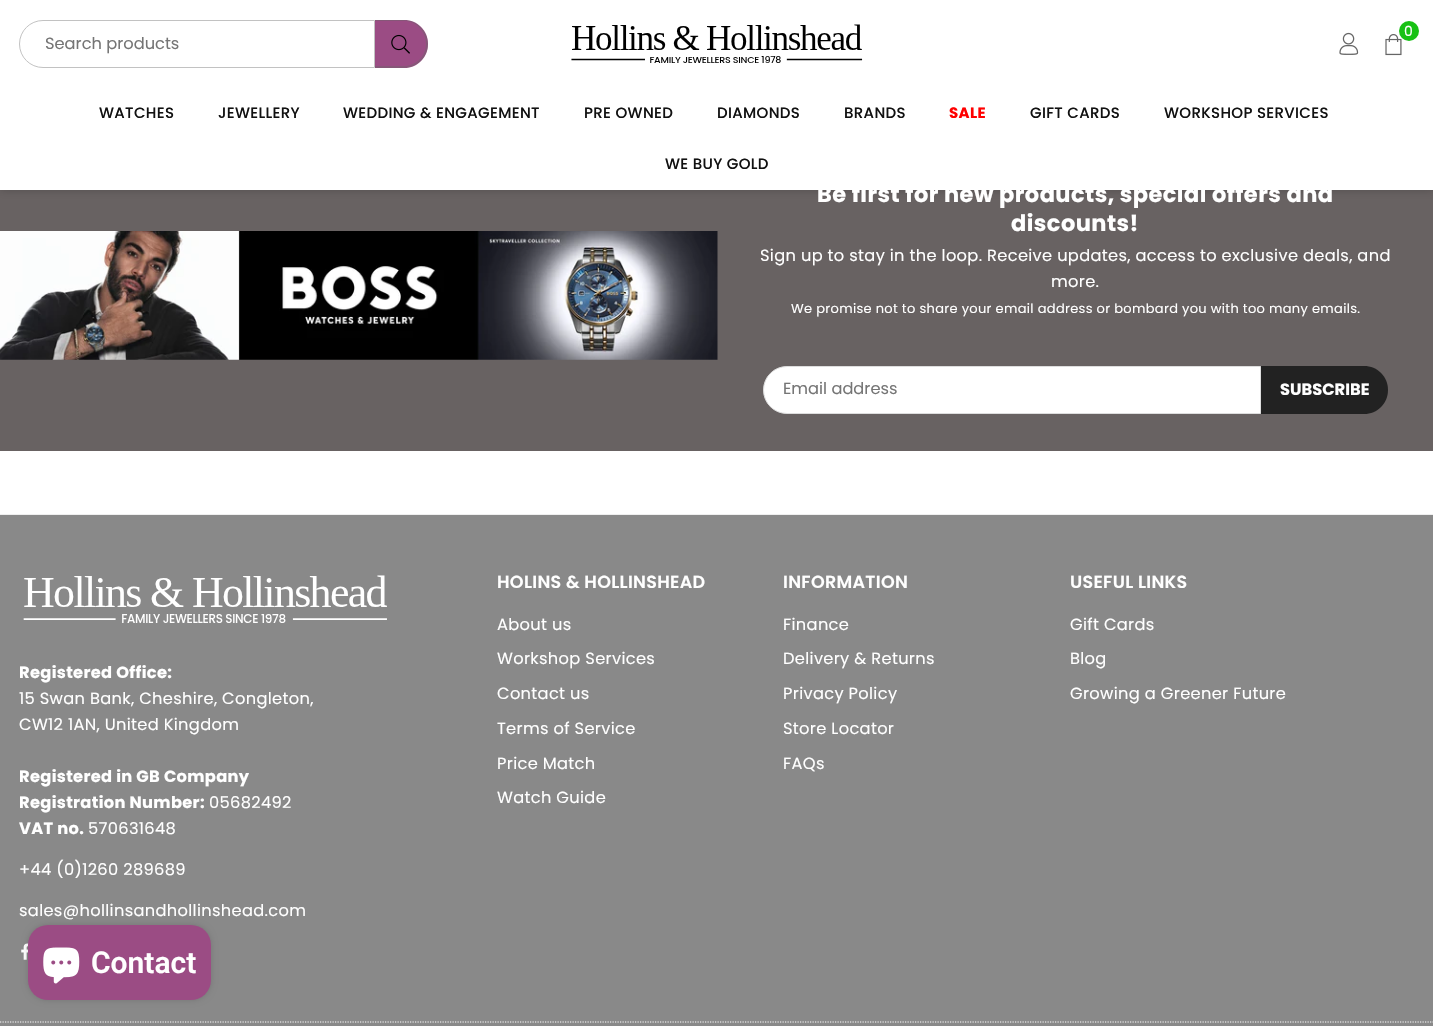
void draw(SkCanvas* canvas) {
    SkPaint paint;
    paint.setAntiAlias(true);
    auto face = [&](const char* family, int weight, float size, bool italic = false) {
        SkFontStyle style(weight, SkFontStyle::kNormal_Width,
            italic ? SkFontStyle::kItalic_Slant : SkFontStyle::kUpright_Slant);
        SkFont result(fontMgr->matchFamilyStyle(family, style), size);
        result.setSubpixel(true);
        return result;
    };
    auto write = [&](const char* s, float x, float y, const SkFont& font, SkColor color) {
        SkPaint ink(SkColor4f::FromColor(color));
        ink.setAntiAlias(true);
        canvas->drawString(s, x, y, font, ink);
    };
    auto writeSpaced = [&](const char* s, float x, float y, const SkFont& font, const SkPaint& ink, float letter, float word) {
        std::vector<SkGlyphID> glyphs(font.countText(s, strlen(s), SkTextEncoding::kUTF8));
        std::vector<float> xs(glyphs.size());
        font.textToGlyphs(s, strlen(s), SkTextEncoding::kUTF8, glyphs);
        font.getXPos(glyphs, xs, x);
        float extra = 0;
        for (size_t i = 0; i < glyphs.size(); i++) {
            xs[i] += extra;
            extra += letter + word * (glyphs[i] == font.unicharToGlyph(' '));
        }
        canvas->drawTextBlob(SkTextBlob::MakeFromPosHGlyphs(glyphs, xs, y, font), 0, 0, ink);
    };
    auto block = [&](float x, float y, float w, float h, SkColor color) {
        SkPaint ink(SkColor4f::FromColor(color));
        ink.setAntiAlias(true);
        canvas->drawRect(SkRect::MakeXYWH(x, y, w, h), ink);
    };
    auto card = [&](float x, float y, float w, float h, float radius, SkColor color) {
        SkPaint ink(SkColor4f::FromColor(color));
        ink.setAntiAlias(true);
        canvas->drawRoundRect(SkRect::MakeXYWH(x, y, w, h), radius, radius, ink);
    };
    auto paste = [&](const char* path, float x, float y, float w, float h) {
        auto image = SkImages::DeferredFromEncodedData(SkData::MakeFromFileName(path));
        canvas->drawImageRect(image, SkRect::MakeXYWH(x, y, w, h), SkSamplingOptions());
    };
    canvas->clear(SK_ColorWHITE);
    block(0, 190, 1433, 261, SkColorSetRGB(104, 98, 98));
    paint.setColor(SkColorSetARGB(51, 0, 0, 0));
    paint.setMaskFilter(SkMaskFilter::MakeBlur(kNormal_SkBlurStyle, 4.5f));
    canvas->drawRect(SkRect::MakeXYWH(0, 0, 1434, 190), paint);
    paint.setMaskFilter(nullptr);
    block(0, 0, 1433, 190, SK_ColorWHITE);
    paste("pic1.png", 571, 24, 292, 39);
    paste("pic2.png", 1385, 34, 17, 22);
    paint.setColor(SkColorSetRGB(24, 193, 20));
    canvas->drawCircle(1409, 31, 10, paint);
    auto kFont1 = face("Poppins", 400, 14);
    paint.setColor(SK_ColorWHITE);
    writeSpaced("0", 1404, 36, kFont1, paint, 0.33f, 0);
    paste("pic3.png", 1339, 32, 20, 23);
    paint.setStyle(SkPaint::kStroke_Style);
    paint.setStrokeWidth(1);
    paint.setColor(SkColorSetRGB(194, 194, 194));
    canvas->drawPath(SkPathBuilder().moveTo(43, 20.5f).lineTo(374.5f, 20.5f).lineTo(374.5f, 67.5f).lineTo(43, 67.5f).cubicTo(30, 67.5f, 19.5f, 57, 19.5f, 44).cubicTo(19.5f, 31, 30, 20.5f, 43, 20.5f).close().detach(), paint);
    auto kFont2 = face("Poppins", 400, 16.25f);
    write("Search products", 45, 49, kFont2, SkColorSetRGB(117, 117, 117));
    paint.setStyle(SkPaint::kFill_Style);
    paint.setColor(SkColorSetRGB(155, 76, 132));
    canvas->drawPath(SkPathBuilder().moveTo(375, 20).lineTo(404, 20).cubicTo(417.5f, 20, 428, 30.5f, 428, 44).cubicTo(428, 57.5f, 417.5f, 68, 404, 68).lineTo(375, 68).close().detach(), paint);
    paint.setColor(SkColorSetARGB(102, 102, 102, 102));
    canvas->drawPath(SkPathBuilder(SkPathFillType::kEvenOdd).moveTo(375, 20).lineTo(404, 20).cubicTo(417, 20, 428, 31, 428, 44).cubicTo(428, 57, 417, 68, 404, 68).lineTo(375, 68).close().moveTo(375, 21).lineTo(404, 21).cubicTo(416, 21, 426, 31, 426, 44).cubicTo(426, 56, 416, 66, 404, 66).lineTo(375, 66).close().detach(), paint);
    paste("pic4.png", 391, 34, 19, 20);
    auto kFont3 = face("Poppins", 500, 15);
    paint.setColor(SkColorSetRGB(17, 17, 17));
    writeSpaced("WATCHES", 99, 118, kFont3, paint, 0.33f, 0);
    writeSpaced("JEWELLERY", 218, 118, kFont3, paint, 0.33f, 0);
    writeSpaced("WEDDING & ENGAGEMENT", 343, 118, kFont3, paint, 0.33f, 0);
    writeSpaced("PRE OWNED", 584, 118, kFont3, paint, 0.33f, 0);
    writeSpaced("DIAMONDS", 717, 118, kFont3, paint, 0.33f, 0);
    writeSpaced("BRANDS", 844, 118, kFont3, paint, 0.33f, 0);
    auto kFont4 = face("Poppins", 700, 15);
    paint.setColor(SkColorSetRGB(255, 0, 0));
    writeSpaced("SALE", 949, 118, kFont4, paint, 0.33f, 0);
    paint.setColor(SkColorSetRGB(17, 17, 17));
    writeSpaced("GIFT CARDS", 1030, 118, kFont3, paint, 0.33f, 0);
    writeSpaced("WORKSHOP SERVICES", 1164, 118, kFont3, paint, 0.33f, 0);
    writeSpaced("WE BUY GOLD", 665, 169, kFont3, paint, 0.33f, 0);
    paste("pic5.png", 0, 231, 718, 129);
    auto kFont5 = face("Poppins", 700, 22.5f);
    paint.setColor(SK_ColorWHITE);
    writeSpaced("Be first for new products, special offers and", 817, 202, kFont5, paint, 0.45f, 0);
    writeSpaced("discounts!", 1011, 231, kFont5, paint, 0.45f, 0);
    writeSpaced("Sign up to stay in the loop. Receive updates, access to exclusive deals, and", 760, 261, kFont2, paint, 0.33f, 0);
    writeSpaced("more.", 1051, 287, kFont2, paint, 0.33f, 0);
    auto kFont6 = face("Poppins", 400, 13);
    writeSpaced("We promise not to share your email address or bombard you with too many emails.", 791, 313, kFont6, paint, 0.33f, 0);
    canvas->drawPath(SkPathBuilder().moveTo(787, 366.5f).lineTo(1260.5f, 366.5f).lineTo(1260.5f, 413.5f).lineTo(787, 413.5f).cubicTo(774, 413.5f, 763.5f, 403, 763.5f, 390).cubicTo(763.5f, 377, 774, 366.5f, 787, 366.5f).close().detach(), paint);
    paint.setStyle(SkPaint::kStroke_Style);
    paint.setColor(SkColorSetRGB(221, 221, 221));
    canvas->drawPath(SkPathBuilder().moveTo(787, 366.5f).lineTo(1260.5f, 366.5f).lineTo(1260.5f, 413.5f).lineTo(787, 413.5f).cubicTo(774, 413.5f, 763.5f, 403, 763.5f, 390).cubicTo(763.5f, 377, 774, 366.5f, 787, 366.5f).close().detach(), paint);
    write("Email address", 783, 394, kFont2, SkColorSetRGB(117, 117, 117));
    paint.setStyle(SkPaint::kFill_Style);
    paint.setColor(SkColorSetRGB(34, 34, 34));
    canvas->drawPath(SkPathBuilder().moveTo(1261, 366).lineTo(1364, 366).cubicTo(1377.5f, 366, 1388, 376.5f, 1388, 390).cubicTo(1388, 403.5f, 1377.5f, 414, 1364, 414).lineTo(1261, 414).close().detach(), paint);
    auto kFont7 = face("Poppins", 700, 16.25f);
    write("SUBSCRIBE", 1280, 395, kFont7, SK_ColorWHITE);
    block(0, 515, 1433, 511, SkColorSetRGB(137, 137, 137));
    block(0, 514, 1433, 1, SkColorSetRGB(238, 238, 238));
    auto kFont8 = face("Poppins", 600, 17.5f);
    paint.setColor(SK_ColorWHITE);
    writeSpaced("HOLINS & HOLLINSHEAD", 497, 588, kFont8, paint, 0.3f, 0);
    writeSpaced("About us", 497, 630, kFont2, paint, 0.33f, 0);
    writeSpaced("Workshop Services", 497, 664, kFont2, paint, 0.33f, 0);
    writeSpaced("Contact us", 497, 699, kFont2, paint, 0.33f, 0);
    writeSpaced("Terms of Service", 497, 734, kFont2, paint, 0.33f, 0);
    writeSpaced("Price Match", 497, 769, kFont2, paint, 0.33f, 0);
    writeSpaced("Watch Guide", 497, 803, kFont2, paint, 0.33f, 0);
    writeSpaced("INFORMATION", 783, 588, kFont8, paint, 0.3f, 0);
    writeSpaced("Finance", 783, 630, kFont2, paint, 0.33f, 0);
    writeSpaced("Delivery & Returns", 783, 664, kFont2, paint, 0.33f, 0);
    writeSpaced("Privacy Policy", 783, 699, kFont2, paint, 0.33f, 0);
    writeSpaced("Store Locator", 783, 734, kFont2, paint, 0.33f, 0);
    writeSpaced("FAQs", 783, 769, kFont2, paint, 0.33f, 0);
    writeSpaced("USEFUL LINKS", 1070, 588, kFont8, paint, 0.3f, 0);
    writeSpaced("Gift Cards", 1070, 630, kFont2, paint, 0.33f, 0);
    writeSpaced("Blog", 1070, 664, kFont2, paint, 0.33f, 0);
    writeSpaced("Growing a Greener Future", 1070, 699, kFont2, paint, 0.33f, 0);
    paste("pic6.png", 23, 575, 364, 48);
    writeSpaced("Registered Office:", 19, 678, kFont7, paint, 0.33f, 0);
    writeSpaced("15 Swan Bank, Cheshire, Congleton,", 19, 704, kFont2, paint, 0.33f, 0);
    writeSpaced("CW12 1AN, United Kingdom", 19, 730, kFont2, paint, 0.33f, 0);
    writeSpaced("Registered in GB Company", 19, 782, kFont7, paint, 0.33f, 0);
    writeSpaced("Registration Number:", 19, 808, kFont7, paint, 0.33f, 0);
    writeSpaced("05682492", 209, 808, kFont2, paint, 0.33f, 0);
    writeSpaced("VAT no.", 19, 834, kFont7, paint, 0.33f, 0);
    writeSpaced("570631648", 88, 834, kFont2, paint, 0.33f, 0);
    writeSpaced("+44 (0)1260 289689", 19, 875, kFont2, paint, 0.33f, 0);
    writeSpaced("sales@hollinsandhollinshead.com", 19, 916, kFont2, paint, 0.33f, 0);
    paste("pic7.png", 21, 943, 8, 17);
    paint.setStyle(SkPaint::kStroke_Style);
    paint.setStrokeWidth(1.2f);
    paint.setPathEffect(SkDashPathEffect::Make({{1.25f, 1.25f}}, 0));
    canvas->drawPath(SkPathBuilder().moveTo(0, 1022).lineTo(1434, 1022).detach(), paint);
    paint.setPathEffect(nullptr);
    paint.setStyle(SkPaint::kFill_Style);
    paint.setColor(SkColorSetARGB(38, 0, 0, 0));
    paint.setMaskFilter(SkMaskFilter::MakeBlur(kNormal_SkBlurStyle, 3));
    canvas->drawRoundRect(SkRect::MakeXYWH(28, 925, 183, 75), 20, 20, paint);
    paint.setMaskFilter(nullptr);
    card(28, 925, 183, 75, 20, SkColorSetRGB(155, 76, 132));
    paste("pic8.png", 43, 947, 37, 37);
    auto kFont9 = face("Roboto", 600, 30);
    write("Contact", 91, 973, kFont9, SK_ColorWHITE);
}
